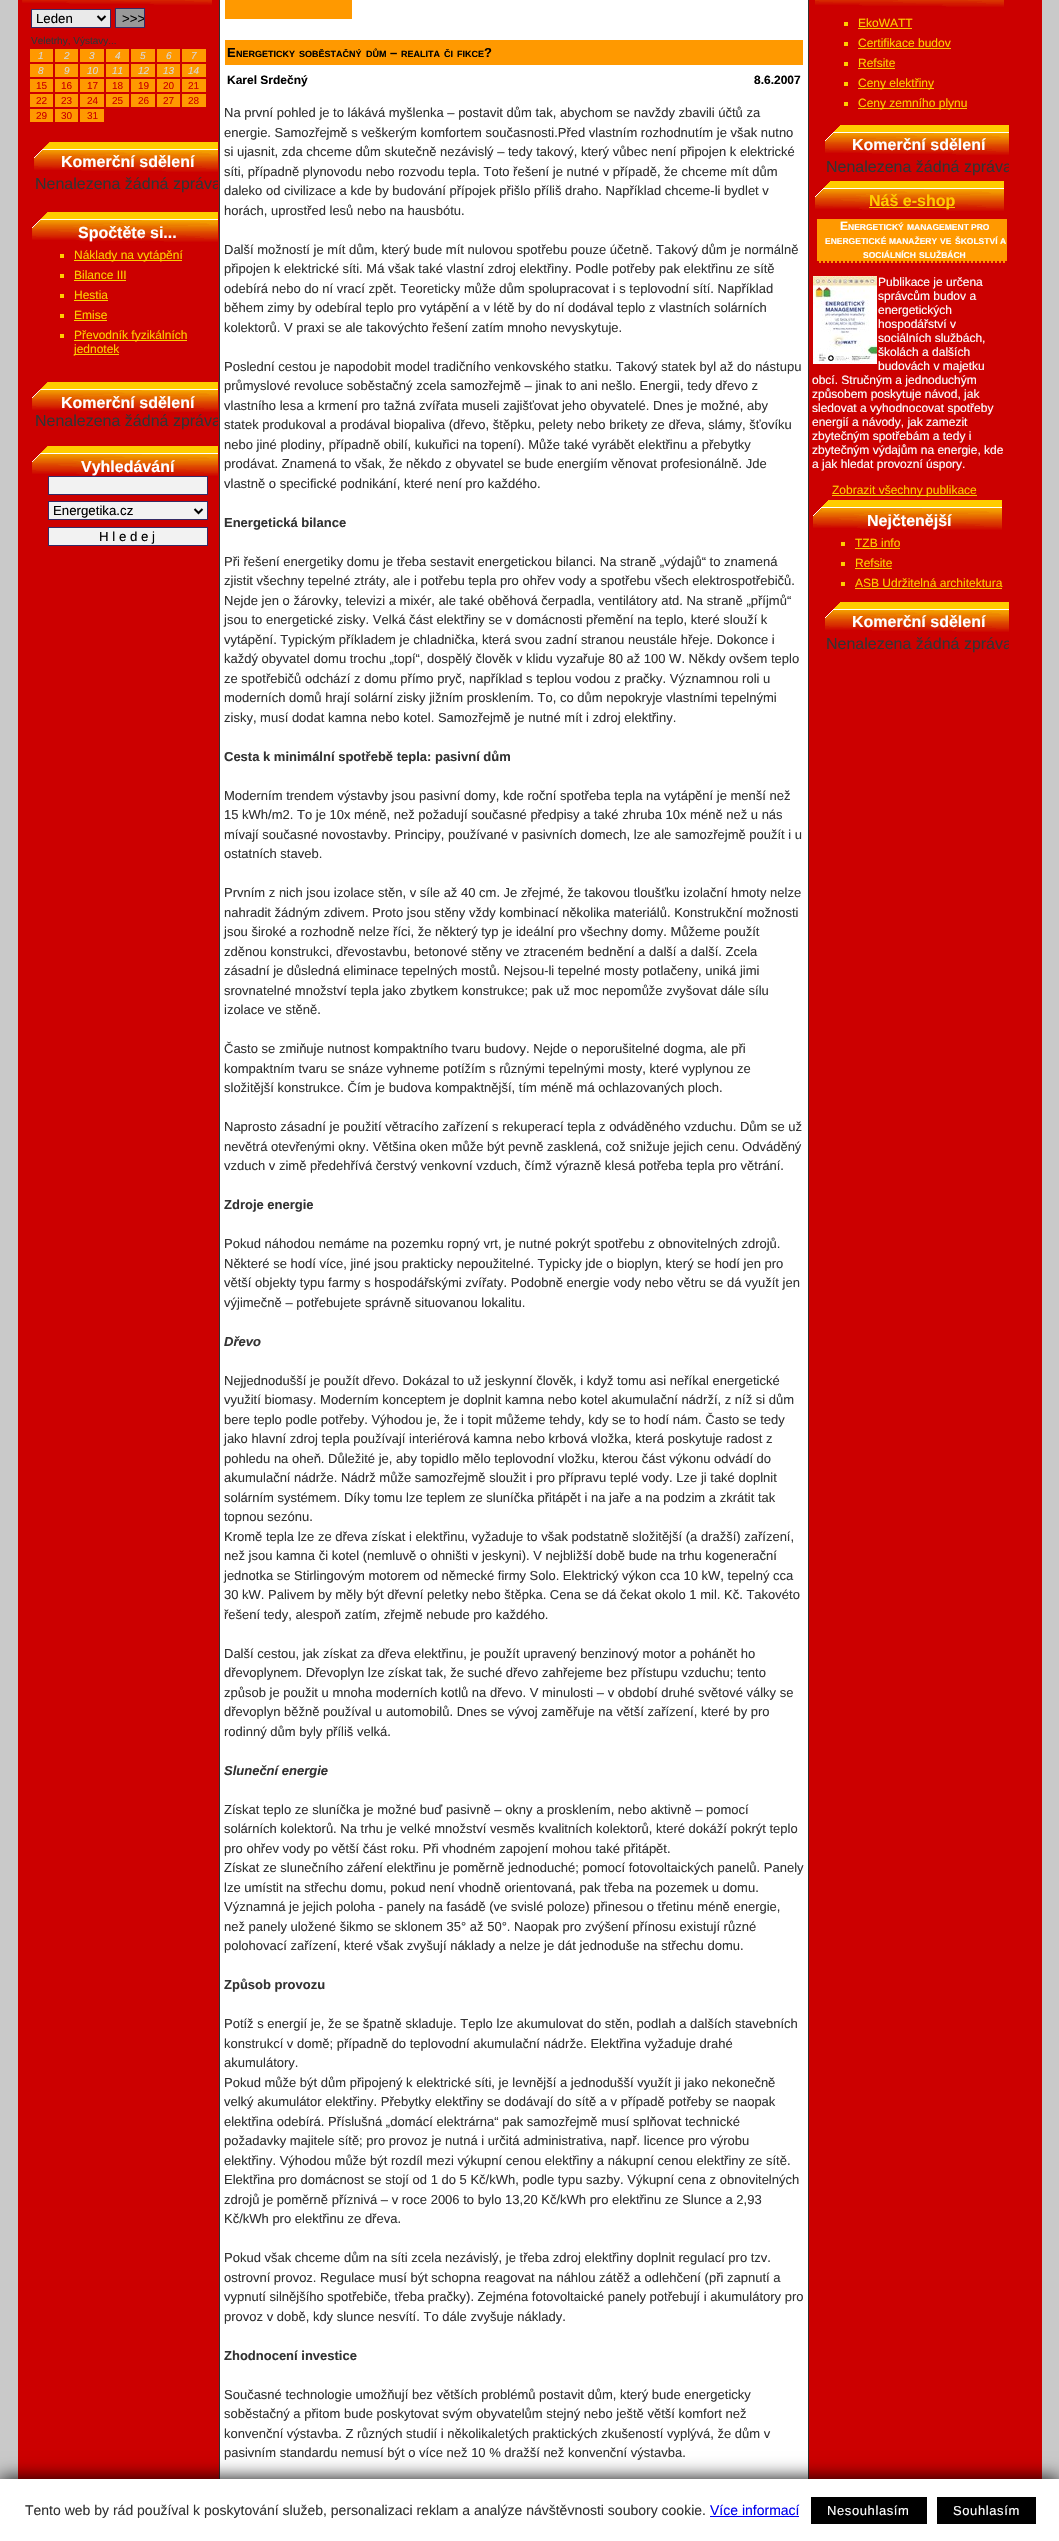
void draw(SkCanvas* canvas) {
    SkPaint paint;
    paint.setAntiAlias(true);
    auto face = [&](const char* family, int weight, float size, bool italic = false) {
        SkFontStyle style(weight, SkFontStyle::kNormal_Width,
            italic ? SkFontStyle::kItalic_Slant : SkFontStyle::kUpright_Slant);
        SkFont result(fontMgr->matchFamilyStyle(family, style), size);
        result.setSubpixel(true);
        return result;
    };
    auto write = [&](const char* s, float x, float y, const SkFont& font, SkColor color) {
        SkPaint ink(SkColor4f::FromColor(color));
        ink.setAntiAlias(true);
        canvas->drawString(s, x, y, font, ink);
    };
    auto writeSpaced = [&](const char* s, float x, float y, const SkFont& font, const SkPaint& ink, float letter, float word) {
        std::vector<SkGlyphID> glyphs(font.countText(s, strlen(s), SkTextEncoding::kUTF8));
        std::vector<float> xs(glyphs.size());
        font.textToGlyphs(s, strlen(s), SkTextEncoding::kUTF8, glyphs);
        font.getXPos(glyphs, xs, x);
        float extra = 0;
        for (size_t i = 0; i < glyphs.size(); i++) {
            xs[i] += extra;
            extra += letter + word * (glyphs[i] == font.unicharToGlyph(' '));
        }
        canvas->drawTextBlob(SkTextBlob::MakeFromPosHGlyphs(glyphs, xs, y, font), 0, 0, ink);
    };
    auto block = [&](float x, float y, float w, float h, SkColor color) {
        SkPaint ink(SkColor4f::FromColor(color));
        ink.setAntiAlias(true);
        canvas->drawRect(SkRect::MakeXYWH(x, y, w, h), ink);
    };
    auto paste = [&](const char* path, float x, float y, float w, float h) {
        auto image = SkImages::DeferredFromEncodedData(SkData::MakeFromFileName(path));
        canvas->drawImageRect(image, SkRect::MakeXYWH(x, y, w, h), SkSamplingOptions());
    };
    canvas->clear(SkColorSetRGB(201, 201, 201));
    block(18, 0, 1024, 2479, SkColorSetRGB(204, 0, 0));
    paste("pic1.png", 22, 0, 190, 5);
    paint.setColor(SkColorSetRGB(234, 234, 234));
    canvas->drawRect(SkRect::MakeXYWH(31.5f, 9.5f, 79, 18), paint);
    paint.setStyle(SkPaint::kStroke_Style);
    paint.setStrokeWidth(1);
    paint.setColor(SkColorSetRGB(53, 43, 102));
    canvas->drawRect(SkRect::MakeXYWH(31.5f, 9.5f, 79, 18), paint);
    paint.setStrokeWidth(2);
    paint.setColor(SK_ColorBLACK);
    canvas->drawPath(SkPathBuilder().moveTo(97.5f, 16).lineTo(101.5f, 20).lineTo(105.5f, 16).detach(), paint);
    auto kFont1 = face("Liberation Sans", 400, 13.25f);
    write("Leden", 36, 23, kFont1, SK_ColorBLACK);
    paint.setStyle(SkPaint::kFill_Style);
    paint.setColor(SkColorSetRGB(153, 153, 153));
    canvas->drawRect(SkRect::MakeXYWH(115.5f, 8.5f, 29, 19), paint);
    paint.setStyle(SkPaint::kStroke_Style);
    paint.setStrokeWidth(1);
    paint.setColor(SkColorSetRGB(53, 43, 102));
    canvas->drawRect(SkRect::MakeXYWH(115.5f, 8.5f, 29, 19), paint);
    canvas->save();
    canvas->clipRect(SkRect::MakeXYWH(116, 9, 28, 18));
    write(">>>", 122, 23, kFont1, SK_ColorBLACK);
    canvas->restore();
    auto kFont2 = face("Liberation Sans", 400, 10);
    write("Veletrhy, Výstavy...", 31, 44, kFont2, SkColorSetRGB(51, 51, 51));
    block(30, 49, 23, 13, SkColorSetRGB(255, 153, 0));
    auto kFont3 = face("Liberation Sans", 400, 10, true);
    write("1", 38, 59, kFont3, SkColorSetRGB(215, 215, 215));
    block(55, 49, 23, 13, SkColorSetRGB(255, 153, 0));
    write("2", 64, 59, kFont3, SkColorSetRGB(215, 215, 215));
    block(80, 49, 24, 13, SkColorSetRGB(255, 153, 0));
    write("3", 89, 59, kFont3, SkColorSetRGB(215, 215, 215));
    block(106, 49, 23, 13, SkColorSetRGB(255, 153, 0));
    write("4", 115, 59, kFont3, SkColorSetRGB(215, 215, 215));
    block(131, 49, 24, 13, SkColorSetRGB(255, 153, 0));
    write("5", 140, 59, kFont3, SkColorSetRGB(215, 215, 215));
    block(157, 49, 23, 13, SkColorSetRGB(255, 153, 0));
    write("6", 166, 59, kFont3, SkColorSetRGB(215, 215, 215));
    block(182, 49, 24, 13, SkColorSetRGB(255, 153, 0));
    write("7", 191, 59, kFont3, SkColorSetRGB(215, 215, 215));
    block(30, 64, 23, 13, SkColorSetRGB(255, 153, 0));
    write("8", 38, 74, kFont3, SkColorSetRGB(215, 215, 215));
    block(55, 64, 23, 13, SkColorSetRGB(255, 153, 0));
    write("9", 64, 74, kFont3, SkColorSetRGB(215, 215, 215));
    block(80, 64, 24, 13, SkColorSetRGB(255, 153, 0));
    write("10", 87, 74, kFont3, SkColorSetRGB(215, 215, 215));
    block(106, 64, 23, 13, SkColorSetRGB(255, 153, 0));
    write("11", 112, 74, kFont3, SkColorSetRGB(215, 215, 215));
    block(131, 64, 24, 13, SkColorSetRGB(255, 153, 0));
    write("12", 138, 74, kFont3, SkColorSetRGB(215, 215, 215));
    block(157, 64, 23, 13, SkColorSetRGB(255, 153, 0));
    write("13", 163, 74, kFont3, SkColorSetRGB(215, 215, 215));
    block(182, 64, 24, 13, SkColorSetRGB(255, 153, 0));
    write("14", 188, 74, kFont3, SkColorSetRGB(215, 215, 215));
    block(30, 79, 23, 13, SkColorSetRGB(255, 153, 0));
    write("15", 36, 89, kFont2, SkColorSetRGB(204, 0, 0));
    block(55, 79, 23, 13, SkColorSetRGB(255, 153, 0));
    write("16", 61, 89, kFont2, SkColorSetRGB(204, 0, 0));
    block(80, 79, 24, 13, SkColorSetRGB(255, 153, 0));
    write("17", 87, 89, kFont2, SkColorSetRGB(204, 0, 0));
    block(106, 79, 23, 13, SkColorSetRGB(255, 153, 0));
    write("18", 112, 89, kFont2, SkColorSetRGB(204, 0, 0));
    block(131, 79, 24, 13, SkColorSetRGB(255, 153, 0));
    write("19", 138, 89, kFont2, SkColorSetRGB(204, 0, 0));
    block(157, 79, 23, 13, SkColorSetRGB(255, 153, 0));
    write("20", 163, 89, kFont2, SkColorSetRGB(204, 0, 0));
    block(182, 79, 24, 13, SkColorSetRGB(255, 153, 0));
    write("21", 188, 89, kFont2, SkColorSetRGB(204, 0, 0));
    block(30, 94, 23, 13, SkColorSetRGB(255, 153, 0));
    write("22", 36, 104, kFont2, SkColorSetRGB(204, 0, 0));
    block(55, 94, 23, 13, SkColorSetRGB(255, 153, 0));
    write("23", 61, 104, kFont2, SkColorSetRGB(204, 0, 0));
    block(80, 94, 24, 13, SkColorSetRGB(255, 153, 0));
    write("24", 87, 104, kFont2, SkColorSetRGB(204, 0, 0));
    block(106, 94, 23, 13, SkColorSetRGB(255, 153, 0));
    write("25", 112, 104, kFont2, SkColorSetRGB(204, 0, 0));
    block(131, 94, 24, 13, SkColorSetRGB(255, 153, 0));
    write("26", 138, 104, kFont2, SkColorSetRGB(204, 0, 0));
    block(157, 94, 23, 13, SkColorSetRGB(255, 153, 0));
    write("27", 163, 104, kFont2, SkColorSetRGB(204, 0, 0));
    block(182, 94, 24, 13, SkColorSetRGB(255, 153, 0));
    write("28", 188, 104, kFont2, SkColorSetRGB(204, 0, 0));
    block(30, 109, 23, 13, SkColorSetRGB(255, 153, 0));
    write("29", 36, 119, kFont2, SkColorSetRGB(204, 0, 0));
    block(55, 109, 23, 13, SkColorSetRGB(255, 153, 0));
    write("30", 61, 119, kFont2, SkColorSetRGB(204, 0, 0));
    block(80, 109, 24, 13, SkColorSetRGB(255, 153, 0));
    write("31", 87, 119, kFont2, SkColorSetRGB(204, 0, 0));
    paste("pic2.png", 34, 142, 184, 30);
    auto kFont4 = face("Liberation Sans", 700, 16);
    write("Komerční sdělení", 61, 167, kFont4, SK_ColorWHITE);
    canvas->save();
    canvas->clipRect(SkRect::MakeXYWH(18, 0, 200, 569));
    auto kFont5 = face("Liberation Sans", 400, 16);
    write("Nenalezena žádná zpráva", 35, 189, kFont5, SkColorSetRGB(51, 51, 51));
    canvas->restore();
    paste("pic3.png", 32, 212, 186, 30);
    write("Spočtěte si...", 78, 238, kFont4, SK_ColorWHITE);
    block(60, 254, 4, 4, SkColorSetRGB(255, 204, 0));
    block(74, 260, 108, 1, SkColorSetRGB(255, 204, 0));
    auto kFont6 = face("Liberation Sans", 400, 12);
    write("Náklady na vytápění", 74, 259, kFont6, SkColorSetRGB(255, 204, 0));
    block(60, 274, 4, 4, SkColorSetRGB(255, 204, 0));
    write("Bilance III", 74, 279, kFont6, SkColorSetRGB(255, 204, 0));
    block(74, 280, 52, 1, SkColorSetRGB(255, 204, 0));
    block(60, 294, 4, 4, SkColorSetRGB(255, 204, 0));
    write("Hestia", 74, 299, kFont6, SkColorSetRGB(255, 204, 0));
    block(74, 300, 34, 1, SkColorSetRGB(255, 204, 0));
    block(60, 314, 4, 4, SkColorSetRGB(255, 204, 0));
    write("Emise", 74, 319, kFont6, SkColorSetRGB(255, 204, 0));
    block(74, 320, 33, 1, SkColorSetRGB(255, 204, 0));
    block(60, 334, 4, 4, SkColorSetRGB(255, 204, 0));
    block(74, 340, 113, 1, SkColorSetRGB(255, 204, 0));
    write("Převodník fyzikálních", 74, 339, kFont6, SkColorSetRGB(255, 204, 0));
    block(74, 354, 45, 1, SkColorSetRGB(255, 204, 0));
    write("jednotek", 74, 353, kFont6, SkColorSetRGB(255, 204, 0));
    paste("pic3.png", 32, 382, 186, 30);
    write("Komerční sdělení", 61, 408, kFont4, SK_ColorWHITE);
    canvas->save();
    canvas->clipRect(SkRect::MakeXYWH(18, 0, 200, 569));
    write("Nenalezena žádná zpráva", 35, 426, kFont5, SkColorSetRGB(51, 51, 51));
    canvas->restore();
    paste("pic3.png", 32, 446, 186, 30);
    write("Vyhledávání", 81, 472, kFont4, SK_ColorWHITE);
    paint.setStyle(SkPaint::kFill_Style);
    paint.setColor(SkColorSetRGB(242, 242, 242));
    canvas->drawRect(SkRect::MakeXYWH(48.5f, 476.5f, 159, 18), paint);
    paint.setStyle(SkPaint::kStroke_Style);
    paint.setColor(SkColorSetRGB(53, 43, 102));
    canvas->drawRect(SkRect::MakeXYWH(48.5f, 476.5f, 159, 18), paint);
    paint.setStyle(SkPaint::kFill_Style);
    paint.setColor(SkColorSetRGB(242, 242, 242));
    canvas->drawRect(SkRect::MakeXYWH(48.5f, 501.5f, 159, 18), paint);
    paint.setStyle(SkPaint::kStroke_Style);
    paint.setColor(SkColorSetRGB(53, 43, 102));
    canvas->drawRect(SkRect::MakeXYWH(48.5f, 501.5f, 159, 18), paint);
    paint.setStrokeWidth(2);
    paint.setColor(SK_ColorBLACK);
    canvas->drawPath(SkPathBuilder().moveTo(194.5f, 509).lineTo(198.5f, 513).lineTo(202.5f, 509).detach(), paint);
    write("Energetika.cz", 53, 515, kFont1, SK_ColorBLACK);
    paint.setStyle(SkPaint::kFill_Style);
    paint.setColor(SkColorSetRGB(242, 242, 242));
    canvas->drawRect(SkRect::MakeXYWH(48.5f, 527.5f, 159, 18), paint);
    paint.setStyle(SkPaint::kStroke_Style);
    paint.setStrokeWidth(1);
    paint.setColor(SkColorSetRGB(53, 43, 102));
    canvas->drawRect(SkRect::MakeXYWH(48.5f, 527.5f, 159, 18), paint);
    write("H l e d e j", 99, 541, kFont1, SK_ColorBLACK);
    block(220, 0, 588, 2479, SK_ColorWHITE);
    paint.setColor(SkColorSetRGB(51, 51, 51));
    canvas->drawRect(SkRect::MakeXYWH(219.5f, -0.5f, 589, 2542), paint);
    block(225, 0, 127, 19, SkColorSetRGB(255, 153, 0));
    block(225, 40, 578, 25, SkColorSetRGB(255, 153, 0));
    auto kFont7 = face("Liberation Sans", 700, 13);
    write("E", 227, 57, kFont7, SK_ColorBLACK);
    auto kFont8 = face("Liberation Sans", 700, 9);
    write("NERGETICKY", 236, 57, kFont8, SK_ColorBLACK);
    write("SOBĚSTAČNÝ", 299, 57, kFont8, SK_ColorBLACK);
    write("DŮM", 366, 57, kFont8, SK_ColorBLACK);
    write("–", 390, 57, kFont7, SK_ColorBLACK);
    write("REALITA", 401, 57, kFont8, SK_ColorBLACK);
    write("ČI", 444, 57, kFont8, SK_ColorBLACK);
    write("FIKCE", 457, 57, kFont8, SK_ColorBLACK);
    write("?", 484, 57, kFont7, SK_ColorBLACK);
    auto kFont9 = face("Liberation Sans", 700, 12);
    write("Karel Srdečný", 227, 84, kFont9, SK_ColorBLACK);
    write("8.6.2007", 754, 84, kFont9, SK_ColorBLACK);
    auto kFont10 = face("Liberation Sans", 400, 13);
    write("Na první pohled je to lákává myšlenka – postavit dům tak, abychom se navždy zbavili účtů za", 224, 117, kFont10, SkColorSetRGB(51, 51, 51));
    write("energie. Samozřejmě s veškerým komfortem současnosti.Před vlastním rozhodnutím je však nutno", 224, 137, kFont10, SkColorSetRGB(51, 51, 51));
    write("si ujasnit, zda chceme dům skutečně nezávislý – tedy takový, který vůbec není připojen k elektrické", 224, 156, kFont10, SkColorSetRGB(51, 51, 51));
    write("síti, případně plynovodu nebo rozvodu tepla. Toto řešení je nutné v případě, že chceme mít dům", 224, 176, kFont10, SkColorSetRGB(51, 51, 51));
    write("daleko od civilizace a kde by budování přípojek přišlo příliš draho. Například chceme-li bydlet v", 224, 195, kFont10, SkColorSetRGB(51, 51, 51));
    write("horách, uprostřed lesů nebo na hausbótu.", 224, 215, kFont10, SkColorSetRGB(51, 51, 51));
    write("Další možností je mít dům, který bude mít nulovou spotřebu pouze účetně. Takový dům je normálně", 224, 254, kFont10, SkColorSetRGB(51, 51, 51));
    write("připojen k elektrické síti. Má však také vlastní zdroj elektřiny. Podle potřeby pak elektřinu ze sítě", 224, 273, kFont10, SkColorSetRGB(51, 51, 51));
    write("odebírá nebo do ní vrací zpět. Teoreticky může dům spolupracovat i s teplovodní sítí. Například", 224, 293, kFont10, SkColorSetRGB(51, 51, 51));
    write("během zimy by odebíral teplo pro vytápění a v létě by do ní dodával teplo z vlastních solárních", 224, 312, kFont10, SkColorSetRGB(51, 51, 51));
    write("kolektorů. V praxi se ale takovýchto řešení zatím mnoho nevyskytuje.", 224, 332, kFont10, SkColorSetRGB(51, 51, 51));
    write("Poslední cestou je napodobit model tradičního venkovského statku. Takový statek byl až do nástupu", 224, 371, kFont10, SkColorSetRGB(51, 51, 51));
    write("průmyslové revoluce soběstačný zcela samozřejmě – jinak to ani nešlo. Energii, tedy dřevo z", 224, 390, kFont10, SkColorSetRGB(51, 51, 51));
    write("vlastního lesa a krmení pro tažná zvířata museli zajišťovat jeho obyvatelé. Dnes je možné, aby", 224, 410, kFont10, SkColorSetRGB(51, 51, 51));
    write("statek produkoval a prodával biopaliva (dřevo, štěpku, pelety nebo brikety ze dřeva, slámy, šťovíku", 224, 429, kFont10, SkColorSetRGB(51, 51, 51));
    write("nebo jiné plodiny, případně obilí, kukuřici na topení). Může také vyrábět elektřinu a přebytky", 224, 449, kFont10, SkColorSetRGB(51, 51, 51));
    write("prodávat. Znamená to však, že někdo z obyvatel se bude energiím věnovat profesionálně. Jde", 224, 468, kFont10, SkColorSetRGB(51, 51, 51));
    write("vlastně o specifické podnikání, které není pro každého.", 224, 488, kFont10, SkColorSetRGB(51, 51, 51));
    write("Energetická bilance", 224, 527, kFont7, SkColorSetRGB(51, 51, 51));
    write("Při řešení energetiky domu je třeba sestavit energetickou bilanci. Na straně „výdajů“ to znamená", 224, 566, kFont10, SkColorSetRGB(51, 51, 51));
    write("zjistit všechny tepelné ztráty, ale i potřebu tepla pro ohřev vody a spotřebu všech elektrospotřebičů.", 224, 585, kFont10, SkColorSetRGB(51, 51, 51));
    write("Nejde jen o žárovky, televizi a mixér, ale také oběhová čerpadla, ventilátory atd. Na straně „příjmů“", 224, 605, kFont10, SkColorSetRGB(51, 51, 51));
    write("jsou to energetické zisky. Velká část elektřiny se v domácnosti přemění na teplo, které slouží k", 224, 624, kFont10, SkColorSetRGB(51, 51, 51));
    write("vytápění. Typickým příkladem je chladnička, která svou zadní stranou neustále hřeje. Dokonce i", 224, 644, kFont10, SkColorSetRGB(51, 51, 51));
    write("každý obyvatel domu trochu „topí“, dospělý člověk v klidu vyzařuje 80 až 100 W. Někdy ovšem teplo", 224, 663, kFont10, SkColorSetRGB(51, 51, 51));
    write("ze spotřebičů odchází z domu přímo pryč, například s teplou vodou z pračky. Významnou roli u", 224, 683, kFont10, SkColorSetRGB(51, 51, 51));
    write("moderních domů hrají solární zisky jižním prosklením. To, co dům nepokryje vlastními tepelnými", 224, 702, kFont10, SkColorSetRGB(51, 51, 51));
    write("zisky, musí dodat kamna nebo kotel. Samozřejmě je nutné mít i zdroj elektřiny.", 224, 722, kFont10, SkColorSetRGB(51, 51, 51));
    write("Cesta k minimální spotřebě tepla: pasivní dům", 224, 761, kFont7, SkColorSetRGB(51, 51, 51));
    write("Moderním trendem výstavby jsou pasivní domy, kde roční spotřeba tepla na vytápění je menší než", 224, 800, kFont10, SkColorSetRGB(51, 51, 51));
    write("15 kWh/m2. To je 10x méně, než požadují současné předpisy a také zhruba 10x méně než u nás", 224, 819, kFont10, SkColorSetRGB(51, 51, 51));
    write("mívají současné novostavby. Principy, používané v pasivních domech, lze ale samozřejmě použít i u", 224, 839, kFont10, SkColorSetRGB(51, 51, 51));
    write("ostatních staveb.", 224, 858, kFont10, SkColorSetRGB(51, 51, 51));
    write("Prvním z nich jsou izolace stěn, v síle až 40 cm. Je zřejmé, že takovou tloušťku izolační hmoty nelze", 224, 897, kFont10, SkColorSetRGB(51, 51, 51));
    write("nahradit žádným zdivem. Proto jsou stěny vždy kombinací několika materiálů. Konstrukční možnosti", 224, 917, kFont10, SkColorSetRGB(51, 51, 51));
    write("jsou široké a rozhodně nelze říci, že některý typ je ideální pro všechny domy. Můžeme použít", 224, 936, kFont10, SkColorSetRGB(51, 51, 51));
    write("zděnou konstrukci, dřevostavbu, betonové stěny ve ztraceném bednění a další a další. Zcela", 224, 956, kFont10, SkColorSetRGB(51, 51, 51));
    write("zásadní je důsledná eliminace tepelných mostů. Nejsou-li tepelné mosty potlačeny, uniká jimi", 224, 975, kFont10, SkColorSetRGB(51, 51, 51));
    write("srovnatelné množství tepla jako zbytkem konstrukce; pak už moc nepomůže zvyšovat dále sílu", 224, 995, kFont10, SkColorSetRGB(51, 51, 51));
    write("izolace ve stěně.", 224, 1014, kFont10, SkColorSetRGB(51, 51, 51));
    write("Často se zmiňuje nutnost kompaktního tvaru budovy. Nejde o neporušitelné dogma, ale při", 224, 1053, kFont10, SkColorSetRGB(51, 51, 51));
    write("kompaktním tvaru se snáze vyhneme potížím s různými tepelnými mosty, které vyplynou ze", 224, 1073, kFont10, SkColorSetRGB(51, 51, 51));
    write("složitější konstrukce. Čím je budova kompaktnější, tím méně má ochlazovaných ploch.", 224, 1092, kFont10, SkColorSetRGB(51, 51, 51));
    write("Naprosto zásadní je použití větracího zařízení s rekuperací tepla z odváděného vzduchu. Dům se už", 224, 1131, kFont10, SkColorSetRGB(51, 51, 51));
    write("nevětrá otevřenými okny. Většina oken může být pevně zasklená, což snižuje jejich cenu. Odváděný", 224, 1151, kFont10, SkColorSetRGB(51, 51, 51));
    write("vzduch v zimě předehřívá čerstvý venkovní vzduch, čímž výrazně klesá potřeba tepla pro větrání.", 224, 1170, kFont10, SkColorSetRGB(51, 51, 51));
    write("Zdroje energie", 224, 1209, kFont7, SkColorSetRGB(51, 51, 51));
    write("Pokud náhodou nemáme na pozemku ropný vrt, je nutné pokrýt spotřebu z obnovitelných zdrojů.", 224, 1248, kFont10, SkColorSetRGB(51, 51, 51));
    write("Některé se hodí více, jiné jsou prakticky nepoužitelné. Typicky jde o bioplyn, který se hodí jen pro", 224, 1268, kFont10, SkColorSetRGB(51, 51, 51));
    write("větší objekty typu farmy s hospodářskými zvířaty. Podobně energie vody nebo větru se dá využít jen", 224, 1287, kFont10, SkColorSetRGB(51, 51, 51));
    write("výjimečně – potřebujete správně situovanou lokalitu.", 224, 1307, kFont10, SkColorSetRGB(51, 51, 51));
    auto kFont11 = face("Liberation Sans", 700, 13, true);
    write("Dřevo", 224, 1346, kFont11, SkColorSetRGB(51, 51, 51));
    write("Nejjednodušší je použít dřevo. Dokázal to už jeskynní člověk, i když tomu asi neříkal energetické", 224, 1385, kFont10, SkColorSetRGB(51, 51, 51));
    write("využití biomasy. Moderním konceptem je doplnit kamna nebo kotel akumulační nádrží, z níž si dům", 224, 1404, kFont10, SkColorSetRGB(51, 51, 51));
    write("bere teplo podle potřeby. Výhodou je, že i topit můžeme tehdy, kdy se to hodí nám. Často se tedy", 224, 1424, kFont10, SkColorSetRGB(51, 51, 51));
    write("jako hlavní zdroj tepla používají interiérová kamna nebo krbová vložka, která poskytuje radost z", 224, 1443, kFont10, SkColorSetRGB(51, 51, 51));
    write("pohledu na oheň. Důležité je, aby topidlo mělo teplovodní vložku, kterou část výkonu odvádí do", 224, 1463, kFont10, SkColorSetRGB(51, 51, 51));
    write("akumulační nádrže. Nádrž může samozřejmě sloužit i pro přípravu teplé vody. Lze ji také doplnit", 224, 1482, kFont10, SkColorSetRGB(51, 51, 51));
    write("solárním systémem. Díky tomu lze teplem ze sluníčka přitápět i na jaře a na podzim a zkrátit tak", 224, 1502, kFont10, SkColorSetRGB(51, 51, 51));
    write("topnou sezónu.", 224, 1521, kFont10, SkColorSetRGB(51, 51, 51));
    write("Kromě tepla lze ze dřeva získat i elektřinu, vyžaduje to však podstatně složitější (a dražší) zařízení,", 224, 1541, kFont10, SkColorSetRGB(51, 51, 51));
    write("než jsou kamna či kotel (nemluvě o ohništi v jeskyni). V nejbližší době bude na trhu kogenerační", 224, 1560, kFont10, SkColorSetRGB(51, 51, 51));
    write("jednotka se Stirlingovým motorem od německé firmy Solo. Elektrický výkon cca 10 kW, tepelný cca", 224, 1580, kFont10, SkColorSetRGB(51, 51, 51));
    write("30 kW. Palivem by měly být dřevní peletky nebo štěpka. Cena se dá čekat okolo 1 mil. Kč. Takovéto", 224, 1599, kFont10, SkColorSetRGB(51, 51, 51));
    write("řešení tedy, alespoň zatím, zřejmě nebude pro každého.", 224, 1619, kFont10, SkColorSetRGB(51, 51, 51));
    write("Další cestou, jak získat za dřeva elektřinu, je použít upravený benzinový motor a pohánět ho", 224, 1658, kFont10, SkColorSetRGB(51, 51, 51));
    write("dřevoplynem. Dřevoplyn lze získat tak, že suché dřevo zahřejeme bez přístupu vzduchu; tento", 224, 1677, kFont10, SkColorSetRGB(51, 51, 51));
    write("způsob je použit u mnoha moderních kotlů na dřevo. V minulosti – v období druhé světové války se", 224, 1697, kFont10, SkColorSetRGB(51, 51, 51));
    write("dřevoplyn běžně používal u automobilů. Dnes se vývoj zaměřuje na větší zařízení, které by pro", 224, 1716, kFont10, SkColorSetRGB(51, 51, 51));
    write("rodinný dům byly příliš velká.", 224, 1736, kFont10, SkColorSetRGB(51, 51, 51));
    write("Sluneční energie", 224, 1775, kFont11, SkColorSetRGB(51, 51, 51));
    write("Získat teplo ze sluníčka je možné buď pasivně – okny a prosklením, nebo aktivně – pomocí", 224, 1814, kFont10, SkColorSetRGB(51, 51, 51));
    write("solárních kolektorů. Na trhu je velké množství vesměs kvalitních kolektorů, které dokáží pokrýt teplo", 224, 1833, kFont10, SkColorSetRGB(51, 51, 51));
    write("pro ohřev vody po větší část roku. Při vhodném zapojení mohou také přitápět.", 224, 1853, kFont10, SkColorSetRGB(51, 51, 51));
    write("Získat ze slunečního záření elektřinu je poměrně jednoduché; pomocí fotovoltaických panelů. Panely", 224, 1872, kFont10, SkColorSetRGB(51, 51, 51));
    write("lze umístit na střechu domu, pokud není vhodně orientovaná, pak třeba na pozemek u domu.", 224, 1892, kFont10, SkColorSetRGB(51, 51, 51));
    write("Významná je jejich poloha - panely na fasádě (ve svislé poloze) přinesou o třetinu méně energie,", 224, 1911, kFont10, SkColorSetRGB(51, 51, 51));
    write("než panely uložené šikmo se sklonem 35° až 50°. Naopak pro zvýšení přínosu existují různé", 224, 1931, kFont10, SkColorSetRGB(51, 51, 51));
    write("polohovací zařízení, které však zvyšují náklady a nelze je dát jednoduše na střechu domu.", 224, 1950, kFont10, SkColorSetRGB(51, 51, 51));
    write("Způsob provozu", 224, 1989, kFont7, SkColorSetRGB(51, 51, 51));
    write("Potíž s energií je, že se špatně skladuje. Teplo lze akumulovat do stěn, podlah a dalších stavebních", 224, 2028, kFont10, SkColorSetRGB(51, 51, 51));
    write("konstrukcí v domě; případně do teplovodní akumulační nádrže. Elektřina vyžaduje drahé", 224, 2048, kFont10, SkColorSetRGB(51, 51, 51));
    write("akumulátory.", 224, 2067, kFont10, SkColorSetRGB(51, 51, 51));
    write("Pokud může být dům připojený k elektrické síti, je levnější a jednodušší využít ji jako nekonečně", 224, 2087, kFont10, SkColorSetRGB(51, 51, 51));
    write("velký akumulátor elektřiny. Přebytky elektřiny se dodávají do sítě a v případě potřeby se naopak", 224, 2106, kFont10, SkColorSetRGB(51, 51, 51));
    write("elektřina odebírá. Příslušná „domácí elektrárna“ pak samozřejmě musí splňovat technické", 224, 2126, kFont10, SkColorSetRGB(51, 51, 51));
    write("požadavky majitele sítě; pro provoz je nutná i určitá administrativa, např. licence pro výrobu", 224, 2145, kFont10, SkColorSetRGB(51, 51, 51));
    write("elektřiny. Výhodou může být rozdíl mezi výkupní cenou elektřiny a nákupní cenou elektřiny ze sítě.", 224, 2165, kFont10, SkColorSetRGB(51, 51, 51));
    write("Elektřina pro domácnost se stojí od 1 do 5 Kč/kWh, podle typu sazby. Výkupní cena z obnovitelných", 224, 2184, kFont10, SkColorSetRGB(51, 51, 51));
    write("zdrojů je poměrně příznivá – v roce 2006 to bylo 13,20 Kč/kWh pro elektřinu ze Slunce a 2,93", 224, 2204, kFont10, SkColorSetRGB(51, 51, 51));
    write("Kč/kWh pro elektřinu ze dřeva.", 224, 2223, kFont10, SkColorSetRGB(51, 51, 51));
    write("Pokud však chceme dům na síti zcela nezávislý, je třeba zdroj elektřiny doplnit regulací pro tzv.", 224, 2262, kFont10, SkColorSetRGB(51, 51, 51));
    write("ostrovní provoz. Regulace musí být schopna reagovat na náhlou zátěž a odlehčení (při zapnutí a", 224, 2282, kFont10, SkColorSetRGB(51, 51, 51));
    write("vypnutí silnějšího spotřebiče, třeba pračky). Zejména fotovoltaické panely potřebují i akumulátory pro", 224, 2301, kFont10, SkColorSetRGB(51, 51, 51));
    write("provoz v době, kdy slunce nesvítí. To dále zvyšuje náklady.", 224, 2321, kFont10, SkColorSetRGB(51, 51, 51));
    write("Zhodnocení investice", 224, 2360, kFont7, SkColorSetRGB(51, 51, 51));
    write("Současné technologie umožňují bez větších problémů postavit dům, který bude energeticky", 224, 2399, kFont10, SkColorSetRGB(51, 51, 51));
    write("soběstačný a přitom bude poskytovat svým obyvatelům stejný nebo ještě větší komfort než", 224, 2418, kFont10, SkColorSetRGB(51, 51, 51));
    write("konvenční výstavba. Z různých studií i několikaletých praktických zkušeností vyplývá, že dům v", 224, 2438, kFont10, SkColorSetRGB(51, 51, 51));
    write("pasivním standardu nemusí být o více než 10 % dražší než konvenční výstavba.", 224, 2457, kFont10, SkColorSetRGB(51, 51, 51));
    paste("pic4.png", 815, 0, 189, 7);
    block(844, 22, 4, 4, SkColorSetRGB(255, 204, 0));
    write("EkoWATT", 858, 27, kFont6, SkColorSetRGB(255, 204, 0));
    block(858, 28, 54, 1, SkColorSetRGB(255, 204, 0));
    block(844, 42, 4, 4, SkColorSetRGB(255, 204, 0));
    write("Certifikace budov", 858, 47, kFont6, SkColorSetRGB(255, 204, 0));
    block(858, 48, 93, 1, SkColorSetRGB(255, 204, 0));
    block(844, 62, 4, 4, SkColorSetRGB(255, 204, 0));
    write("Refsite", 858, 67, kFont6, SkColorSetRGB(255, 204, 0));
    block(858, 68, 37, 1, SkColorSetRGB(255, 204, 0));
    block(844, 82, 4, 4, SkColorSetRGB(255, 204, 0));
    block(858, 88, 76, 1, SkColorSetRGB(255, 204, 0));
    write("Ceny elektřiny", 858, 87, kFont6, SkColorSetRGB(255, 204, 0));
    block(844, 102, 4, 4, SkColorSetRGB(255, 204, 0));
    block(858, 108, 109, 1, SkColorSetRGB(255, 204, 0));
    write("Ceny zemního plynu", 858, 107, kFont6, SkColorSetRGB(255, 204, 0));
    paste("pic5.png", 825, 125, 184, 30);
    write("Komerční sdělení", 852, 150, kFont4, SK_ColorWHITE);
    canvas->save();
    canvas->clipRect(SkRect::MakeXYWH(809, 0, 200, 656));
    write("Nenalezena žádná zpráva", 826, 172, kFont5, SkColorSetRGB(51, 51, 51));
    canvas->restore();
    paste("pic6.png", 815, 181, 189, 30);
    block(869, 207, 86, 1, SkColorSetRGB(255, 204, 0));
    write("Náš e-shop", 869, 206, kFont4, SkColorSetRGB(255, 204, 0));
    block(817, 219, 190, 44, SkColorSetRGB(255, 153, 0));
    paint.setStrokeWidth(2);
    paint.setColor(SkColorSetRGB(204, 0, 0));
    paint.setPathEffect(SkDashPathEffect::Make({{2, 2}}, 0));
    canvas->drawPath(SkPathBuilder().moveTo(817, 262).lineTo(1007, 262).detach(), paint);
    paint.setPathEffect(nullptr);
    write("E", 840, 230, kFont9, SK_ColorWHITE);
    auto kFont12 = face("Liberation Sans", 700, 8.5f);
    write("NERGETICKÝ", 848, 230, kFont12, SK_ColorWHITE);
    write("MANAGEMENT", 907, 230, kFont12, SK_ColorWHITE);
    write("PRO", 971, 230, kFont12, SK_ColorWHITE);
    write("ENERGETICKÉ", 825, 244, kFont12, SK_ColorWHITE);
    write("MANAŽERY", 889, 244, kFont12, SK_ColorWHITE);
    write("VE", 940, 244, kFont12, SK_ColorWHITE);
    write("ŠKOLSTVÍ", 955, 244, kFont12, SK_ColorWHITE);
    write("A", 1000, 244, kFont12, SK_ColorWHITE);
    write("SOCIÁLNÍCH", 863, 258, kFont12, SK_ColorWHITE);
    write("SLUŽBÁCH", 919, 258, kFont12, SK_ColorWHITE);
    paste("pic7.png", 813, 276, 64, 88);
    write("Publikace je určena", 878, 286, kFont6, SK_ColorWHITE);
    write("správcům budov a", 878, 300, kFont6, SK_ColorWHITE);
    write("energetických", 878, 314, kFont6, SK_ColorWHITE);
    write("hospodářství v", 878, 328, kFont6, SK_ColorWHITE);
    write("sociálních službách,", 878, 342, kFont6, SK_ColorWHITE);
    write("školách a dalších", 878, 356, kFont6, SK_ColorWHITE);
    write("budovách v majetku", 878, 370, kFont6, SK_ColorWHITE);
    write("obcí. Stručným a jednoduchým", 812, 384, kFont6, SK_ColorWHITE);
    write("způsobem poskytuje návod, jak", 812, 398, kFont6, SK_ColorWHITE);
    write("sledovat a vyhodnocovat spotřeby", 812, 412, kFont6, SK_ColorWHITE);
    write("energií a návody, jak zamezit", 812, 426, kFont6, SK_ColorWHITE);
    write("zbytečným spotřebám a tedy i", 812, 440, kFont6, SK_ColorWHITE);
    write("zbytečným výdajům na energie, kde", 812, 454, kFont6, SK_ColorWHITE);
    write("a jak hledat provozní úspory.", 812, 468, kFont6, SK_ColorWHITE);
    block(832, 495, 145, 1, SkColorSetRGB(255, 204, 0));
    write("Zobrazit všechny publikace", 832, 494, kFont6, SkColorSetRGB(255, 204, 0));
    paste("pic6.png", 813, 500, 189, 30);
    write("Nejčtenější", 867, 526, kFont4, SK_ColorWHITE);
    block(841, 542, 4, 4, SkColorSetRGB(255, 204, 0));
    write("TZB info", 855, 547, kFont6, SkColorSetRGB(255, 204, 0));
    block(855, 548, 45, 1, SkColorSetRGB(255, 204, 0));
    block(841, 562, 4, 4, SkColorSetRGB(255, 204, 0));
    write("Refsite", 855, 567, kFont6, SkColorSetRGB(255, 204, 0));
    block(855, 568, 37, 1, SkColorSetRGB(255, 204, 0));
    block(841, 582, 4, 4, SkColorSetRGB(255, 204, 0));
    write("ASB Udržitelná architektura", 855, 587, kFont6, SkColorSetRGB(255, 204, 0));
    block(855, 588, 147, 1, SkColorSetRGB(255, 204, 0));
    paste("pic5.png", 825, 602, 184, 30);
    write("Komerční sdělení", 852, 627, kFont4, SK_ColorWHITE);
    canvas->save();
    canvas->clipRect(SkRect::MakeXYWH(809, 0, 200, 656));
    write("Nenalezena žádná zpráva", 826, 649, kFont5, SkColorSetRGB(51, 51, 51));
    canvas->restore();
    paint.setStyle(SkPaint::kFill_Style);
    paint.setColor(SK_ColorBLACK);
    paint.setMaskFilter(SkMaskFilter::MakeBlur(kNormal_SkBlurStyle, 9.5f));
    canvas->drawRect(SkRect::MakeXYWH(0, 2479, 1059, 62), paint);
    paint.setMaskFilter(nullptr);
    block(0, 2479, 1059, 62, SK_ColorWHITE);
    auto kFont13 = face("Liberation Sans", 400, 14);
    write("Tento web by rád používal k poskytování služeb, personalizaci reklam a analýze návštěvnosti soubory cookie.", 25, 2515, kFont13, SkColorSetRGB(51, 51, 51));
    write("Více informací", 710, 2515, kFont13, SkColorSetRGB(0, 0, 238));
    block(710, 2516, 89, 1, SkColorSetRGB(0, 0, 238));
    block(811, 2497, 116, 27, SK_ColorBLACK);
    paint.setColor(SK_ColorWHITE);
    writeSpaced("Nesouhlasím", 827, 2515, kFont10, paint, 0.6f, 0);
    block(937, 2497, 99, 27, SK_ColorBLACK);
    writeSpaced("Souhlasím", 953, 2515, kFont10, paint, 0.6f, 0);
}
